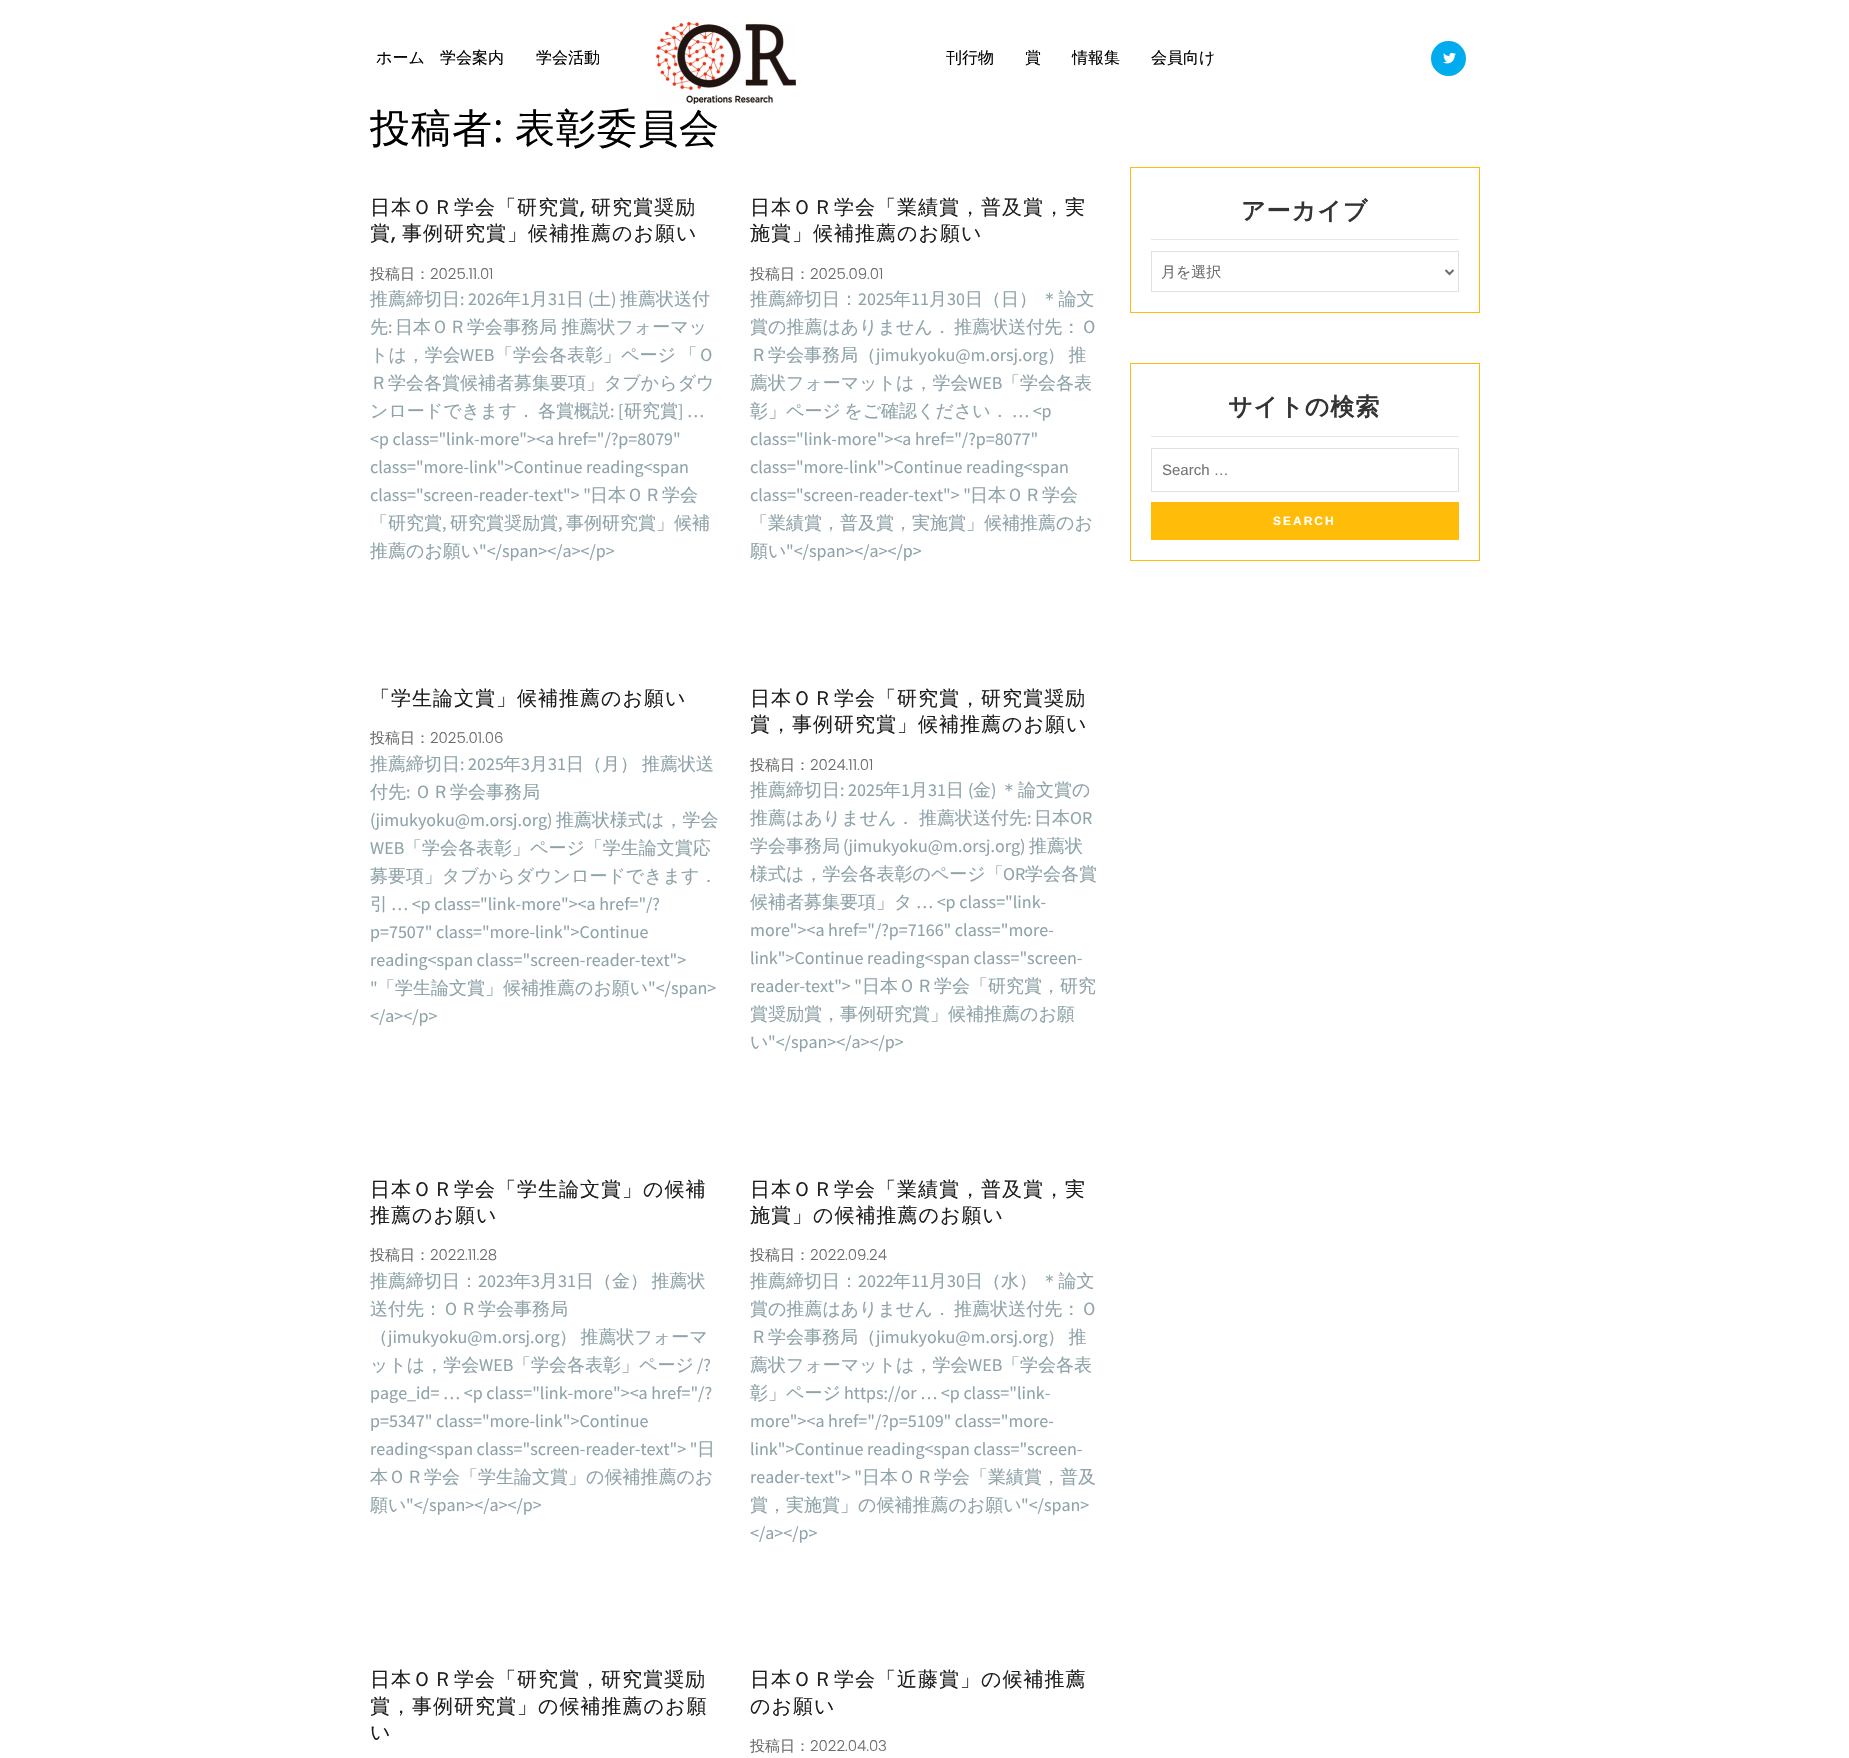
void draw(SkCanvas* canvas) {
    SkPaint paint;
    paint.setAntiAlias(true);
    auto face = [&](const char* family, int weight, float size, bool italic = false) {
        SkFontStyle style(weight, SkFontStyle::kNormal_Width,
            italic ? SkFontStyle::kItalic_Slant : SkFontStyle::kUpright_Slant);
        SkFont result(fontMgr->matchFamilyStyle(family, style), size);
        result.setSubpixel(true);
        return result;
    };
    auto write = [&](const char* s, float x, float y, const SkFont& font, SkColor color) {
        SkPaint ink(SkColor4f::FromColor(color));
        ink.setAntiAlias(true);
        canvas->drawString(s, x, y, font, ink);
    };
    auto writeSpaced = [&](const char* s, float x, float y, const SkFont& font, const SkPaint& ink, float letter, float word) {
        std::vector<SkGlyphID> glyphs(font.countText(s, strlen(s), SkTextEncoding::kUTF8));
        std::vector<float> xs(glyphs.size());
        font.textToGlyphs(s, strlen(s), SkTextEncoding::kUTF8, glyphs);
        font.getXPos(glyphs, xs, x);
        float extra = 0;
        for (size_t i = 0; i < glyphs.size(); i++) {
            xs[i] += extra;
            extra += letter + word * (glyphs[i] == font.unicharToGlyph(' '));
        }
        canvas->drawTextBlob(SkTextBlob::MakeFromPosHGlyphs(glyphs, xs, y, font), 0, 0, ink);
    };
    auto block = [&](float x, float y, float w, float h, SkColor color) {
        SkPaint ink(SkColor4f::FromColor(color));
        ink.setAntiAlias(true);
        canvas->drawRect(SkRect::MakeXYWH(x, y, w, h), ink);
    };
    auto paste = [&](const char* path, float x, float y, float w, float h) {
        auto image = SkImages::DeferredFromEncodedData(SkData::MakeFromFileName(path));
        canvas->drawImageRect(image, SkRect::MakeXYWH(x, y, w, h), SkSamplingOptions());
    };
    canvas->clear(SK_ColorWHITE);
    auto kFont1 = face("WenQuanYi Zen Hei", 500, 16);
    write("ホーム", 376, 63, kFont1, SK_ColorBLACK);
    write("学会案内", 440, 63, kFont1, SK_ColorBLACK);
    write("学会活動", 536, 63, kFont1, SK_ColorBLACK);
    paste("pic1.png", 656, 22, 140, 82);
    write("刊行物", 946, 63, kFont1, SK_ColorBLACK);
    write("賞", 1025, 63, kFont1, SK_ColorBLACK);
    write("情報集", 1072, 63, kFont1, SK_ColorBLACK);
    write("会員向け", 1151, 63, kFont1, SK_ColorBLACK);
    paint.setColor(SkColorSetRGB(0, 172, 238));
    canvas->drawCircle(1448.5f, 58.5f, 17.5f, paint);
    paste("pic2.png", 1443, 52, 13, 12);
    auto kFont2 = face("WenQuanYi Zen Hei", 500, 40);
    paint.setColor(SK_ColorBLACK);
    writeSpaced("投稿者", 370, 142, kFont2, paint, 1, 0);
    auto kFont3 = face("Open Sans", 400, 40);
    writeSpaced(":", 493, 142, kFont3, paint, 1, 0);
    writeSpaced("表彰委員会", 515, 142, kFont2, paint, 1, 0);
    auto kFont4 = face("WenQuanYi Zen Hei", 500, 20);
    paint.setColor(SkColorSetRGB(31, 30, 30));
    writeSpaced("日本ＯＲ学会「研究賞", 370, 214, kFont4, paint, 1, 0);
    auto kFont5 = face("Poppins", 500, 20);
    writeSpaced(",", 580, 214, kFont5, paint, 1, 0);
    writeSpaced("研究賞奨励", 591, 214, kFont4, paint, 1, 0);
    writeSpaced("賞", 370, 240, kFont4, paint, 1, 0);
    writeSpaced(",", 391, 240, kFont5, paint, 1, 0);
    writeSpaced("事例研究賞」候補推薦のお願い", 402, 240, kFont4, paint, 1, 0);
    auto kFont6 = face("WenQuanYi Zen Hei", 500, 15);
    write("投稿日：", 370, 279, kFont6, SkColorSetRGB(108, 108, 108));
    auto kFont7 = face("Poppins", 300, 15);
    write("2025.11.01", 430, 279, kFont7, SkColorSetRGB(108, 108, 108));
    auto kFont8 = face("WenQuanYi Zen Hei", 500, 18);
    write("推薦締切日", 370, 305, kFont8, SkColorSetRGB(143, 163, 170));
    auto kFont9 = face("Source Sans Pro", 400, 18);
    write(": 2026", 460, 305, kFont9, SkColorSetRGB(143, 163, 170));
    write("年", 503, 305, kFont8, SkColorSetRGB(143, 163, 170));
    write("1", 521, 305, kFont9, SkColorSetRGB(143, 163, 170));
    write("月", 530, 305, kFont8, SkColorSetRGB(143, 163, 170));
    write("31", 548, 305, kFont9, SkColorSetRGB(143, 163, 170));
    write("日", 566, 305, kFont8, SkColorSetRGB(143, 163, 170));
    write("(", 588, 305, kFont9, SkColorSetRGB(143, 163, 170));
    write("土", 593, 305, kFont8, SkColorSetRGB(143, 163, 170));
    write(")", 611, 305, kFont9, SkColorSetRGB(143, 163, 170));
    write("推薦状送付", 620, 305, kFont8, SkColorSetRGB(143, 163, 170));
    write("先", 370, 333, kFont8, SkColorSetRGB(143, 163, 170));
    write(":", 388, 333, kFont9, SkColorSetRGB(143, 163, 170));
    paint.setColor(SkColorSetRGB(143, 163, 170));
    writeSpaced("日本ＯＲ学会事務局 推薦状フォーマッ", 395, 333, kFont8, paint, 0, -1);
    write("トは，学会", 370, 361, kFont8, SkColorSetRGB(143, 163, 170));
    write("WEB", 460, 361, kFont9, SkColorSetRGB(143, 163, 170));
    writeSpaced("「学会各表彰」ページ 「Ｏ", 495, 361, kFont8, paint, 0, -2);
    write("Ｒ学会各賞候補者募集要項」タブからダウ", 370, 389, kFont8, SkColorSetRGB(143, 163, 170));
    write("ンロードできます．", 370, 417, kFont8, SkColorSetRGB(143, 163, 170));
    write("各賞概説", 538, 417, kFont8, SkColorSetRGB(143, 163, 170));
    write(": [", 610, 417, kFont9, SkColorSetRGB(143, 163, 170));
    write("研究賞", 624, 417, kFont8, SkColorSetRGB(143, 163, 170));
    write("] …", 678, 417, kFont9, SkColorSetRGB(143, 163, 170));
    write("<p class=\"link-more\"><a href=\"/?p=8079\"", 370, 445, kFont9, SkColorSetRGB(143, 163, 170));
    write("class=\"more-link\">Continue reading<span", 370, 473, kFont9, SkColorSetRGB(143, 163, 170));
    write("class=\"screen-reader-text\"> \"", 370, 501, kFont9, SkColorSetRGB(143, 163, 170));
    write("日本ＯＲ学会", 590, 501, kFont8, SkColorSetRGB(143, 163, 170));
    write("「研究賞", 370, 529, kFont8, SkColorSetRGB(143, 163, 170));
    write(",", 442, 529, kFont9, SkColorSetRGB(143, 163, 170));
    write("研究賞奨励賞", 450, 529, kFont8, SkColorSetRGB(143, 163, 170));
    write(",", 558, 529, kFont9, SkColorSetRGB(143, 163, 170));
    write("事例研究賞」候補", 566, 529, kFont8, SkColorSetRGB(143, 163, 170));
    write("推薦のお願い", 370, 557, kFont8, SkColorSetRGB(143, 163, 170));
    write("\"</span></a></p>", 479, 557, kFont9, SkColorSetRGB(143, 163, 170));
    paint.setColor(SkColorSetRGB(31, 30, 30));
    writeSpaced("日本ＯＲ学会「業績賞，普及賞，実", 750, 214, kFont4, paint, 1, 0);
    writeSpaced("施賞」候補推薦のお願い", 750, 240, kFont4, paint, 1, 0);
    write("投稿日：", 750, 279, kFont6, SkColorSetRGB(108, 108, 108));
    write("2025.09.01", 810, 279, kFont7, SkColorSetRGB(108, 108, 108));
    write("推薦締切日：", 750, 305, kFont8, SkColorSetRGB(143, 163, 170));
    write("2025", 858, 305, kFont9, SkColorSetRGB(143, 163, 170));
    write("年", 893, 305, kFont8, SkColorSetRGB(143, 163, 170));
    write("11", 911, 305, kFont9, SkColorSetRGB(143, 163, 170));
    write("月", 929, 305, kFont8, SkColorSetRGB(143, 163, 170));
    write("30", 947, 305, kFont9, SkColorSetRGB(143, 163, 170));
    paint.setColor(SkColorSetRGB(143, 163, 170));
    writeSpaced("日（日） ＊論文", 965, 305, kFont8, paint, 0, -2);
    writeSpaced("賞の推薦はありません． 推薦状送付先：Ｏ", 750, 333, kFont8, paint, 0, -2);
    write("Ｒ学会事務局（", 750, 361, kFont8, SkColorSetRGB(143, 163, 170));
    write("jimukyoku@m.orsj.org", 876, 361, kFont9, SkColorSetRGB(143, 163, 170));
    writeSpaced("） 推", 1047, 361, kFont8, paint, 0, -2);
    write("薦状フォーマットは，学会", 750, 389, kFont8, SkColorSetRGB(143, 163, 170));
    write("WEB", 968, 389, kFont9, SkColorSetRGB(143, 163, 170));
    write("「学会各表", 1002, 389, kFont8, SkColorSetRGB(143, 163, 170));
    writeSpaced("彰」ページ をご確認ください．", 750, 417, kFont8, paint, 0, -2);
    write("… <p", 1012, 417, kFont9, SkColorSetRGB(143, 163, 170));
    write("class=\"link-more\"><a href=\"/?p=8077\"", 750, 445, kFont9, SkColorSetRGB(143, 163, 170));
    write("class=\"more-link\">Continue reading<span", 750, 473, kFont9, SkColorSetRGB(143, 163, 170));
    write("class=\"screen-reader-text\"> \"", 750, 501, kFont9, SkColorSetRGB(143, 163, 170));
    write("日本ＯＲ学会", 970, 501, kFont8, SkColorSetRGB(143, 163, 170));
    write("「業績賞，普及賞，実施賞」候補推薦のお", 750, 529, kFont8, SkColorSetRGB(143, 163, 170));
    write("願い", 750, 557, kFont8, SkColorSetRGB(143, 163, 170));
    write("\"</span></a></p>", 786, 557, kFont9, SkColorSetRGB(143, 163, 170));
    paint.setColor(SkColorSetRGB(31, 30, 30));
    writeSpaced("「学生論文賞」候補推薦のお願い", 370, 705, kFont4, paint, 1, 0);
    write("投稿日：", 370, 743, kFont6, SkColorSetRGB(108, 108, 108));
    write("2025.01.06", 430, 743, kFont7, SkColorSetRGB(108, 108, 108));
    write("推薦締切日", 370, 770, kFont8, SkColorSetRGB(143, 163, 170));
    write(": 2025", 460, 770, kFont9, SkColorSetRGB(143, 163, 170));
    write("年", 503, 770, kFont8, SkColorSetRGB(143, 163, 170));
    write("3", 521, 770, kFont9, SkColorSetRGB(143, 163, 170));
    write("月", 530, 770, kFont8, SkColorSetRGB(143, 163, 170));
    write("31", 548, 770, kFont9, SkColorSetRGB(143, 163, 170));
    write("日（月）", 566, 770, kFont8, SkColorSetRGB(143, 163, 170));
    write("推薦状送", 642, 770, kFont8, SkColorSetRGB(143, 163, 170));
    write("付先", 370, 798, kFont8, SkColorSetRGB(143, 163, 170));
    write(":", 406, 798, kFont9, SkColorSetRGB(143, 163, 170));
    write("ＯＲ学会事務局", 414, 798, kFont8, SkColorSetRGB(143, 163, 170));
    write("(jimukyoku@m.orsj.org)", 370, 826, kFont9, SkColorSetRGB(143, 163, 170));
    write("推薦状様式は，学会", 556, 826, kFont8, SkColorSetRGB(143, 163, 170));
    write("WEB", 370, 854, kFont9, SkColorSetRGB(143, 163, 170));
    write("「学会各表彰」ページ「学生論文賞応", 404, 854, kFont8, SkColorSetRGB(143, 163, 170));
    write("募要項」タブからダウンロードできます．", 370, 882, kFont8, SkColorSetRGB(143, 163, 170));
    write("引", 370, 910, kFont8, SkColorSetRGB(143, 163, 170));
    write("… <p class=\"link-more\"><a href=\"/?", 391, 910, kFont9, SkColorSetRGB(143, 163, 170));
    write("p=7507\" class=\"more-link\">Continue", 370, 938, kFont9, SkColorSetRGB(143, 163, 170));
    write("reading<span class=\"screen-reader-text\">", 370, 966, kFont9, SkColorSetRGB(143, 163, 170));
    write("\"", 370, 994, kFont9, SkColorSetRGB(143, 163, 170));
    write("「学生論文賞」候補推薦のお願い", 377, 994, kFont8, SkColorSetRGB(143, 163, 170));
    write("\"</span>", 648, 994, kFont9, SkColorSetRGB(143, 163, 170));
    write("</a></p>", 370, 1022, kFont9, SkColorSetRGB(143, 163, 170));
    writeSpaced("日本ＯＲ学会「研究賞，研究賞奨励", 750, 705, kFont4, paint, 1, 0);
    writeSpaced("賞，事例研究賞」候補推薦のお願い", 750, 731, kFont4, paint, 1, 0);
    write("投稿日：", 750, 770, kFont6, SkColorSetRGB(108, 108, 108));
    write("2024.11.01", 810, 770, kFont7, SkColorSetRGB(108, 108, 108));
    write("推薦締切日", 750, 796, kFont8, SkColorSetRGB(143, 163, 170));
    write(": 2025", 840, 796, kFont9, SkColorSetRGB(143, 163, 170));
    write("年", 883, 796, kFont8, SkColorSetRGB(143, 163, 170));
    write("1", 901, 796, kFont9, SkColorSetRGB(143, 163, 170));
    write("月", 910, 796, kFont8, SkColorSetRGB(143, 163, 170));
    write("31", 928, 796, kFont9, SkColorSetRGB(143, 163, 170));
    write("日", 946, 796, kFont8, SkColorSetRGB(143, 163, 170));
    write("(", 968, 796, kFont9, SkColorSetRGB(143, 163, 170));
    write("金", 973, 796, kFont8, SkColorSetRGB(143, 163, 170));
    write(")", 991, 796, kFont9, SkColorSetRGB(143, 163, 170));
    write("＊論文賞の", 1000, 796, kFont8, SkColorSetRGB(143, 163, 170));
    paint.setColor(SkColorSetRGB(143, 163, 170));
    writeSpaced("推薦はありません． 推薦状送付先", 750, 824, kFont8, paint, 0, -1);
    write(":", 1027, 824, kFont9, SkColorSetRGB(143, 163, 170));
    write("日本", 1034, 824, kFont8, SkColorSetRGB(143, 163, 170));
    write("OR", 1070, 824, kFont9, SkColorSetRGB(143, 163, 170));
    write("学会事務局", 750, 852, kFont8, SkColorSetRGB(143, 163, 170));
    write("(jimukyoku@m.orsj.org)", 843, 852, kFont9, SkColorSetRGB(143, 163, 170));
    write("推薦状", 1029, 852, kFont8, SkColorSetRGB(143, 163, 170));
    write("様式は，学会各表彰のページ「", 750, 880, kFont8, SkColorSetRGB(143, 163, 170));
    write("OR", 1003, 880, kFont9, SkColorSetRGB(143, 163, 170));
    write("学会各賞", 1025, 880, kFont8, SkColorSetRGB(143, 163, 170));
    write("候補者募集要項」タ", 750, 908, kFont8, SkColorSetRGB(143, 163, 170));
    write("… <p class=\"link-", 916, 908, kFont9, SkColorSetRGB(143, 163, 170));
    write("more\"><a href=\"/?p=7166\" class=\"more-", 750, 936, kFont9, SkColorSetRGB(143, 163, 170));
    write("link\">Continue reading<span class=\"screen-", 750, 964, kFont9, SkColorSetRGB(143, 163, 170));
    write("reader-text\"> \"", 750, 992, kFont9, SkColorSetRGB(143, 163, 170));
    write("日本ＯＲ学会「研究賞，研究", 862, 992, kFont8, SkColorSetRGB(143, 163, 170));
    write("賞奨励賞，事例研究賞」候補推薦のお願", 750, 1020, kFont8, SkColorSetRGB(143, 163, 170));
    write("い", 750, 1048, kFont8, SkColorSetRGB(143, 163, 170));
    write("\"</span></a></p>", 768, 1048, kFont9, SkColorSetRGB(143, 163, 170));
    paint.setColor(SkColorSetRGB(31, 30, 30));
    writeSpaced("日本ＯＲ学会「学生論文賞」の候補", 370, 1196, kFont4, paint, 1, 0);
    writeSpaced("推薦のお願い", 370, 1222, kFont4, paint, 1, 0);
    write("投稿日：", 370, 1260, kFont6, SkColorSetRGB(108, 108, 108));
    write("2022.11.28", 430, 1260, kFont7, SkColorSetRGB(108, 108, 108));
    write("推薦締切日：", 370, 1287, kFont8, SkColorSetRGB(143, 163, 170));
    write("2023", 478, 1287, kFont9, SkColorSetRGB(143, 163, 170));
    write("年", 513, 1287, kFont8, SkColorSetRGB(143, 163, 170));
    write("3", 531, 1287, kFont9, SkColorSetRGB(143, 163, 170));
    write("月", 540, 1287, kFont8, SkColorSetRGB(143, 163, 170));
    write("31", 558, 1287, kFont9, SkColorSetRGB(143, 163, 170));
    paint.setColor(SkColorSetRGB(143, 163, 170));
    writeSpaced("日（金） 推薦状", 576, 1287, kFont8, paint, 0, -2);
    write("送付先：ＯＲ学会事務局", 370, 1315, kFont8, SkColorSetRGB(143, 163, 170));
    write("（", 370, 1343, kFont8, SkColorSetRGB(143, 163, 170));
    write("jimukyoku@m.orsj.org", 388, 1343, kFont9, SkColorSetRGB(143, 163, 170));
    writeSpaced("） 推薦状フォーマ", 559, 1343, kFont8, paint, 0, -2);
    write("ットは，学会", 370, 1371, kFont8, SkColorSetRGB(143, 163, 170));
    write("WEB", 479, 1371, kFont9, SkColorSetRGB(143, 163, 170));
    write("「学会各表彰」ページ", 513, 1371, kFont8, SkColorSetRGB(143, 163, 170));
    write("/?", 697, 1371, kFont9, SkColorSetRGB(143, 163, 170));
    write("page_id= … <p class=\"link-more\"><a href=\"/?", 370, 1399, kFont9, SkColorSetRGB(143, 163, 170));
    write("p=5347\" class=\"more-link\">Continue", 370, 1427, kFont9, SkColorSetRGB(143, 163, 170));
    write("reading<span class=\"screen-reader-text\"> \"", 370, 1455, kFont9, SkColorSetRGB(143, 163, 170));
    write("日", 697, 1455, kFont8, SkColorSetRGB(143, 163, 170));
    write("本ＯＲ学会「学生論文賞」の候補推薦のお", 370, 1483, kFont8, SkColorSetRGB(143, 163, 170));
    write("願い", 370, 1511, kFont8, SkColorSetRGB(143, 163, 170));
    write("\"</span></a></p>", 406, 1511, kFont9, SkColorSetRGB(143, 163, 170));
    paint.setColor(SkColorSetRGB(31, 30, 30));
    writeSpaced("日本ＯＲ学会「業績賞，普及賞，実", 750, 1196, kFont4, paint, 1, 0);
    writeSpaced("施賞」の候補推薦のお願い", 750, 1222, kFont4, paint, 1, 0);
    write("投稿日：", 750, 1260, kFont6, SkColorSetRGB(108, 108, 108));
    write("2022.09.24", 810, 1260, kFont7, SkColorSetRGB(108, 108, 108));
    write("推薦締切日：", 750, 1287, kFont8, SkColorSetRGB(143, 163, 170));
    write("2022", 858, 1287, kFont9, SkColorSetRGB(143, 163, 170));
    write("年", 893, 1287, kFont8, SkColorSetRGB(143, 163, 170));
    write("11", 911, 1287, kFont9, SkColorSetRGB(143, 163, 170));
    write("月", 929, 1287, kFont8, SkColorSetRGB(143, 163, 170));
    write("30", 947, 1287, kFont9, SkColorSetRGB(143, 163, 170));
    paint.setColor(SkColorSetRGB(143, 163, 170));
    writeSpaced("日（水） ＊論文", 965, 1287, kFont8, paint, 0, -2);
    writeSpaced("賞の推薦はありません． 推薦状送付先：Ｏ", 750, 1315, kFont8, paint, 0, -2);
    write("Ｒ学会事務局（", 750, 1343, kFont8, SkColorSetRGB(143, 163, 170));
    write("jimukyoku@m.orsj.org", 876, 1343, kFont9, SkColorSetRGB(143, 163, 170));
    writeSpaced("） 推", 1047, 1343, kFont8, paint, 0, -2);
    write("薦状フォーマットは，学会", 750, 1371, kFont8, SkColorSetRGB(143, 163, 170));
    write("WEB", 968, 1371, kFont9, SkColorSetRGB(143, 163, 170));
    write("「学会各表", 1002, 1371, kFont8, SkColorSetRGB(143, 163, 170));
    write("彰」ページ", 750, 1399, kFont8, SkColorSetRGB(143, 163, 170));
    write("https://or … <p class=\"link-", 844, 1399, kFont9, SkColorSetRGB(143, 163, 170));
    write("more\"><a href=\"/?p=5109\" class=\"more-", 750, 1427, kFont9, SkColorSetRGB(143, 163, 170));
    write("link\">Continue reading<span class=\"screen-", 750, 1455, kFont9, SkColorSetRGB(143, 163, 170));
    write("reader-text\"> \"", 750, 1483, kFont9, SkColorSetRGB(143, 163, 170));
    write("日本ＯＲ学会「業績賞，普及", 862, 1483, kFont8, SkColorSetRGB(143, 163, 170));
    write("賞，実施賞」の候補推薦のお願い", 750, 1511, kFont8, SkColorSetRGB(143, 163, 170));
    write("\"</span>", 1021, 1511, kFont9, SkColorSetRGB(143, 163, 170));
    write("</a></p>", 750, 1539, kFont9, SkColorSetRGB(143, 163, 170));
    paint.setColor(SkColorSetRGB(31, 30, 30));
    writeSpaced("日本ＯＲ学会「研究賞，研究賞奨励", 370, 1686, kFont4, paint, 1, 0);
    writeSpaced("賞，事例研究賞」の候補推薦のお願", 370, 1713, kFont4, paint, 1, 0);
    writeSpaced("い", 370, 1739, kFont4, paint, 1, 0);
    writeSpaced("日本ＯＲ学会「近藤賞」の候補推薦", 750, 1686, kFont4, paint, 1, 0);
    writeSpaced("のお願い", 750, 1713, kFont4, paint, 1, 0);
    write("投稿日：", 750, 1751, kFont6, SkColorSetRGB(108, 108, 108));
    write("2022.04.03", 810, 1751, kFont7, SkColorSetRGB(108, 108, 108));
    paint.setStyle(SkPaint::kStroke_Style);
    paint.setStrokeWidth(1);
    paint.setColor(SkColorSetRGB(255, 189, 10));
    canvas->drawRect(SkRect::MakeXYWH(1130.5f, 167.5f, 349, 145), paint);
    block(1151, 239, 308, 1, SkColorSetRGB(231, 231, 231));
    auto kFont10 = face("WenQuanYi Zen Hei", 700, 24);
    paint.setStyle(SkPaint::kFill_Style);
    paint.setColor(SkColorSetRGB(52, 52, 52));
    writeSpaced("アーカイブ", 1241, 219, kFont10, paint, 1, 0);
    paint.setStyle(SkPaint::kStroke_Style);
    paint.setColor(SkColorSetRGB(225, 225, 225));
    canvas->drawRect(SkRect::MakeXYWH(1151.5f, 251.5f, 307, 40), paint);
    paint.setStrokeWidth(2);
    paint.setColor(SkColorSetRGB(108, 108, 108));
    canvas->drawPath(SkPathBuilder().moveTo(1445.5f, 270).lineTo(1449.5f, 274).lineTo(1453.5f, 270).detach(), paint);
    write("月を選択", 1161, 277, kFont6, SkColorSetRGB(108, 108, 108));
    paint.setStrokeWidth(1);
    paint.setColor(SkColorSetRGB(255, 189, 10));
    canvas->drawRect(SkRect::MakeXYWH(1130.5f, 363.5f, 349, 197), paint);
    block(1151, 436, 308, 1, SkColorSetRGB(231, 231, 231));
    paint.setStyle(SkPaint::kFill_Style);
    paint.setColor(SkColorSetRGB(52, 52, 52));
    writeSpaced("サイトの検索", 1228, 415, kFont10, paint, 1, 0);
    paint.setStyle(SkPaint::kStroke_Style);
    paint.setColor(SkColorSetRGB(225, 225, 225));
    canvas->drawRect(SkRect::MakeXYWH(1151.5f, 448.5f, 307, 43), paint);
    auto kFont11 = face("Liberation Sans", 400, 15);
    write("Search …", 1162, 475, kFont11, SkColorSetRGB(117, 117, 117));
    block(1151, 502, 308, 38, SkColorSetRGB(255, 189, 10));
    auto kFont12 = face("Liberation Sans", 700, 12);
    paint.setStyle(SkPaint::kFill_Style);
    paint.setColor(SK_ColorWHITE);
    writeSpaced("SEARCH", 1273, 525, kFont12, paint, 2, 0);
}
